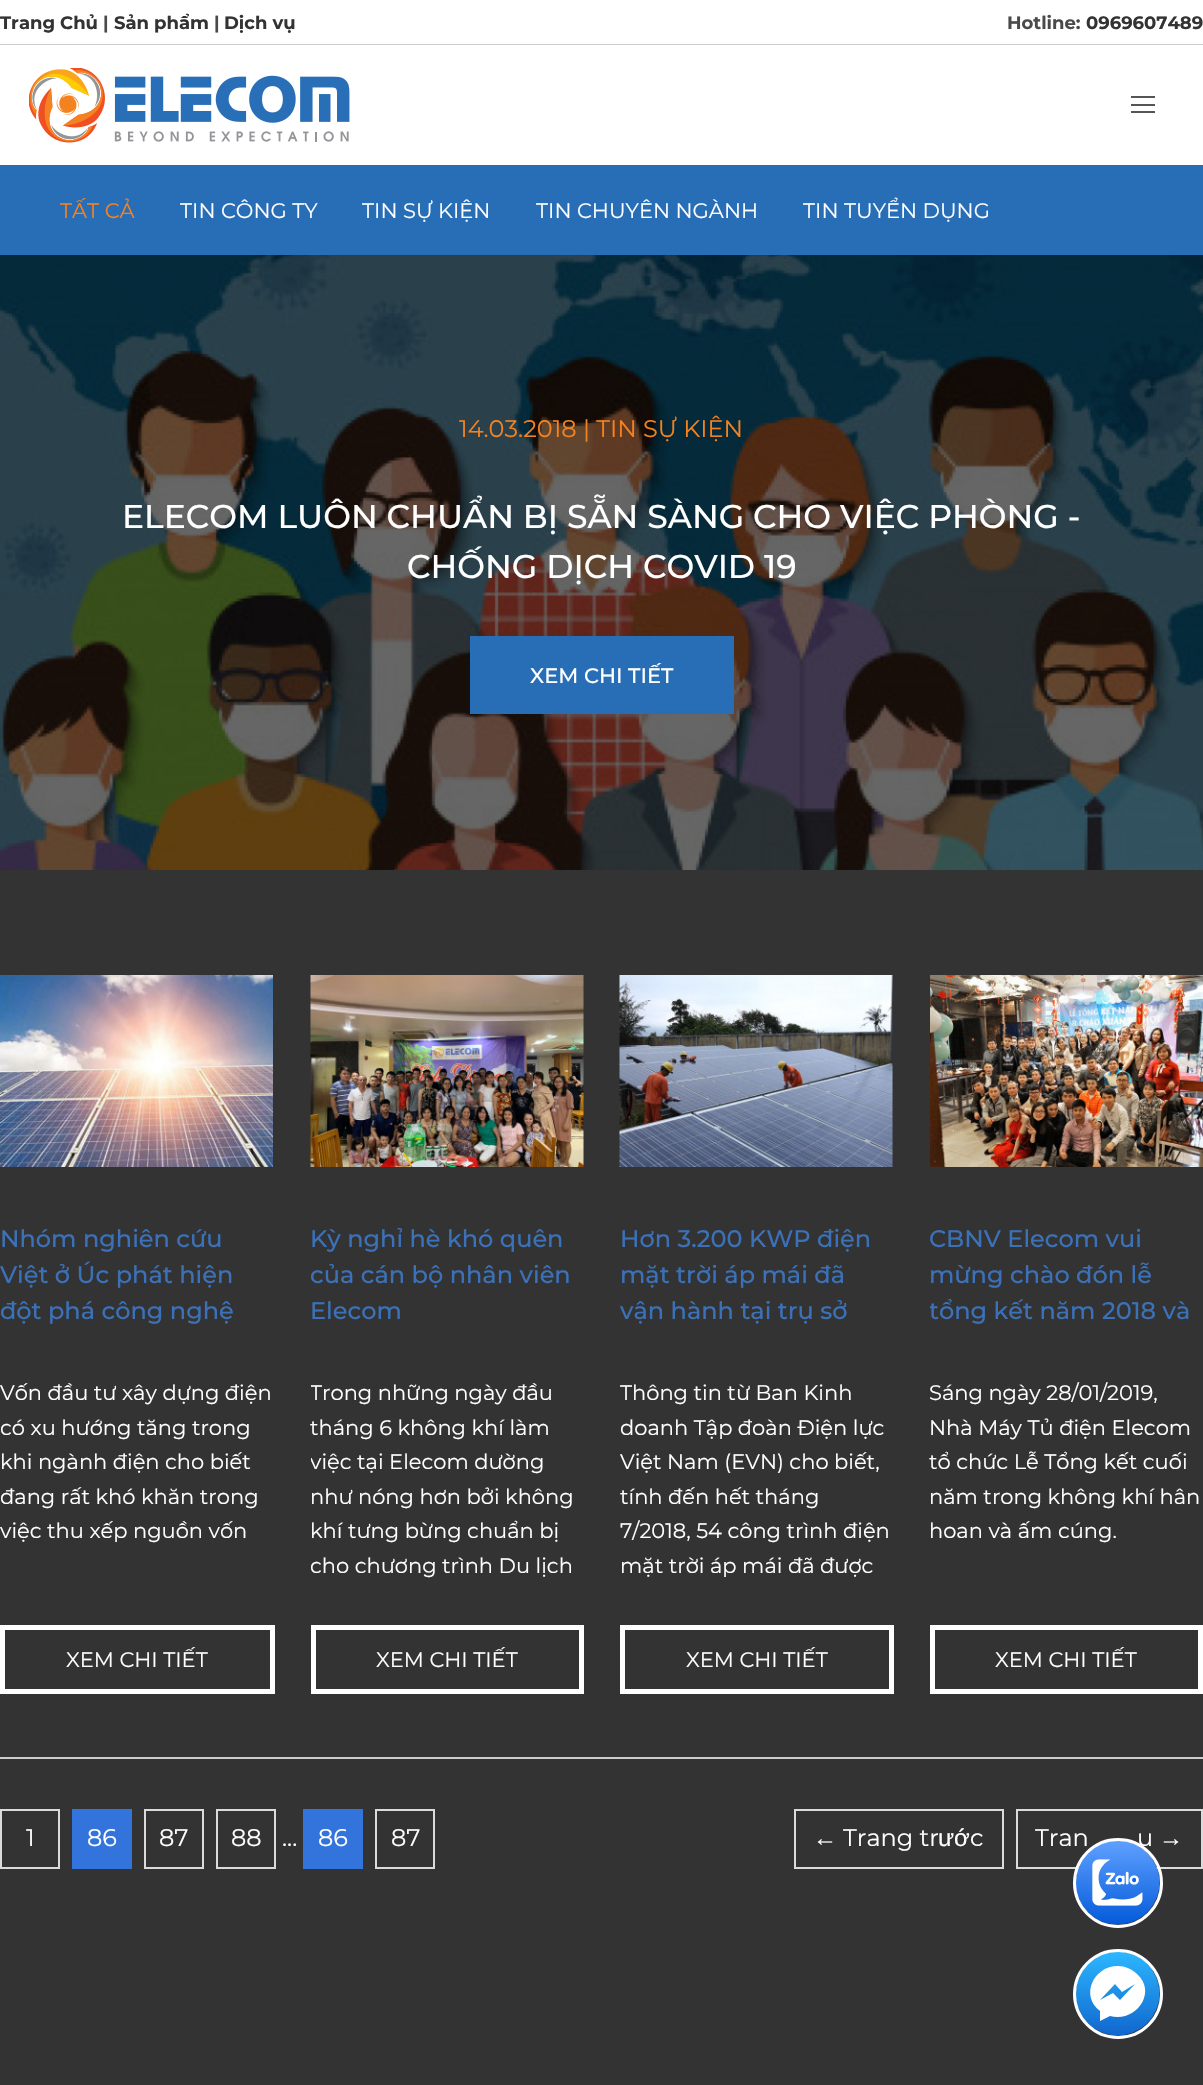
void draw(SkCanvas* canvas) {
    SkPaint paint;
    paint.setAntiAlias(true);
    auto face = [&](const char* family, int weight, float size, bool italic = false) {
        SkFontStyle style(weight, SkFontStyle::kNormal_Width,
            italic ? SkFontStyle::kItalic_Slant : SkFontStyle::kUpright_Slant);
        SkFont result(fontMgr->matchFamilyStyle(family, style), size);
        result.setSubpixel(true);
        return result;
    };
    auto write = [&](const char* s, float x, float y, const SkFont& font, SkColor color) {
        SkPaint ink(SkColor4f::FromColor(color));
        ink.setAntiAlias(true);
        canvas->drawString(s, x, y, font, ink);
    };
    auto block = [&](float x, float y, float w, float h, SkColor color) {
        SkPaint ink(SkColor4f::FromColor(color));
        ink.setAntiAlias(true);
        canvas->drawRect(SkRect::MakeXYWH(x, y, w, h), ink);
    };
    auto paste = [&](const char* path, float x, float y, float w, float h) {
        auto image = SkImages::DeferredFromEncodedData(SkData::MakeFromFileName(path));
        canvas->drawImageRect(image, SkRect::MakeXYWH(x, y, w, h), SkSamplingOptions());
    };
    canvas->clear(SK_ColorWHITE);
    block(0, 44, 1203, 1, SkColorSetRGB(204, 204, 204));
    auto kFont1 = face("Montserrat", 700, 18);
    write("Trang Chủ", 0, 29, kFont1, SkColorSetRGB(51, 51, 51));
    write("|", 103, 29, kFont1, SkColorSetRGB(74, 74, 74));
    write("Sản phẩm", 114, 29, kFont1, SkColorSetRGB(51, 51, 51));
    write("|", 214, 29, kFont1, SkColorSetRGB(74, 74, 74));
    write("Dịch vụ", 224, 29, kFont1, SkColorSetRGB(51, 51, 51));
    write("Hotline:", 1007, 29, kFont1, SkColorSetRGB(74, 74, 74));
    write("0969607489", 1086, 29, kFont1, SkColorSetRGB(51, 51, 51));
    paste("pic1.png", 29, 68, 321, 75);
    block(1131, 96, 24, 2, SkColorSetRGB(85, 85, 85));
    block(1131, 104, 24, 2, SkColorSetRGB(85, 85, 85));
    block(1131, 111, 24, 2, SkColorSetRGB(85, 85, 85));
    block(0, 165, 1203, 90, SkColorSetRGB(40, 110, 183));
    auto kFont2 = face("Montserrat", 400, 21);
    write("TẤT CẢ", 60, 218, kFont2, SkColorSetRGB(245, 130, 32));
    write("TIN CÔNG TY", 180, 218, kFont2, SK_ColorWHITE);
    write("TIN SỰ KIỆN", 362, 218, kFont2, SK_ColorWHITE);
    write("TIN CHUYÊN NGÀNH", 536, 218, kFont2, SK_ColorWHITE);
    write("TIN TUYỂN DỤNG", 803, 218, kFont2, SK_ColorWHITE);
    paste("pic2.png", 0, 255, 1203, 615);
    auto kFont3 = face("Montserrat", 400, 24);
    write("14.03.2018 | TIN SỰ KIỆN", 459, 437, kFont3, SkColorSetRGB(245, 130, 32));
    auto kFont4 = face("Montserrat", 500, 33);
    write("ELECOM LUÔN CHUẨN BỊ SẴN SÀNG CHO VIỆC PHÒNG -", 122, 528, kFont4, SK_ColorWHITE);
    write("CHỐNG DỊCH COVID 19", 407, 578, kFont4, SK_ColorWHITE);
    block(470, 636, 264, 78, SkColorSetRGB(40, 110, 183));
    auto kFont5 = face("Montserrat", 500, 21);
    write("XEM CHI TIẾT", 530, 683, kFont5, SK_ColorWHITE);
    block(0, 870, 1203, 1215, SkColorSetRGB(51, 51, 51));
    paste("pic3.png", 0, 975, 273, 192);
    auto kFont6 = face("Montserrat", 500, 24);
    write("Nhóm nghiên cứu", 0, 1247, kFont6, SkColorSetRGB(59, 113, 184));
    write("Việt ở Úc phát hiện", 0, 1283, kFont6, SkColorSetRGB(59, 113, 184));
    write("đột phá công nghệ", 0, 1319, kFont6, SkColorSetRGB(59, 113, 184));
    write("Vốn đầu tư xây dựng điện", 0, 1400, kFont2, SK_ColorWHITE);
    write("có xu hướng tăng trong", 0, 1435, kFont2, SK_ColorWHITE);
    write("khi ngành điện cho biết", 0, 1469, kFont2, SK_ColorWHITE);
    write("đang rất khó khăn trong", 0, 1504, kFont2, SK_ColorWHITE);
    write("việc thu xếp nguồn vốn", 0, 1538, kFont2, SK_ColorWHITE);
    paint.setStyle(SkPaint::kStroke_Style);
    paint.setStrokeWidth(5);
    paint.setColor(SK_ColorWHITE);
    canvas->drawRect(SkRect::MakeXYWH(2.5f, 1627.5f, 270, 64), paint);
    write("XEM CHI TIẾT", 66, 1667, kFont2, SK_ColorWHITE);
    paste("pic4.png", 310, 975, 274, 192);
    write("Kỳ nghỉ hè khó quên", 310, 1247, kFont6, SkColorSetRGB(59, 113, 184));
    canvas->save();
    canvas->clipRect(SkRect::MakeXYWH(311, 1223, 273, 109));
    write("của cán bộ nhân viên", 310, 1283, kFont6, SkColorSetRGB(59, 113, 184));
    canvas->restore();
    write("Elecom", 310, 1319, kFont6, SkColorSetRGB(59, 113, 184));
    canvas->save();
    canvas->clipRect(SkRect::MakeXYWH(311, 1377, 273, 203));
    write("Trong những ngày đầu", 310, 1400, kFont2, SK_ColorWHITE);
    canvas->restore();
    write("tháng 6 không khí làm", 310, 1435, kFont2, SK_ColorWHITE);
    canvas->save();
    canvas->clipRect(SkRect::MakeXYWH(311, 1377, 273, 203));
    write("việc tại Elecom dường", 310, 1469, kFont2, SK_ColorWHITE);
    canvas->restore();
    write("như nóng hơn bởi không", 310, 1504, kFont2, SK_ColorWHITE);
    write("khí tưng bừng chuẩn bị", 310, 1538, kFont2, SK_ColorWHITE);
    canvas->save();
    canvas->clipRect(SkRect::MakeXYWH(311, 1377, 273, 203));
    write("cho chương trình Du lịch", 310, 1573, kFont2, SK_ColorWHITE);
    canvas->restore();
    canvas->drawRect(SkRect::MakeXYWH(313.5f, 1627.5f, 268, 64), paint);
    write("XEM CHI TIẾT", 376, 1667, kFont2, SK_ColorWHITE);
    paste("pic5.png", 619, 975, 274, 192);
    write("Hơn 3.200 KWP điện", 620, 1247, kFont6, SkColorSetRGB(59, 113, 184));
    write("mặt trời áp mái đã", 620, 1283, kFont6, SkColorSetRGB(59, 113, 184));
    write("vận hành tại trụ sở", 620, 1319, kFont6, SkColorSetRGB(59, 113, 184));
    write("Thông tin từ Ban Kinh", 620, 1400, kFont2, SK_ColorWHITE);
    write("doanh Tập đoàn Điện lực", 620, 1435, kFont2, SK_ColorWHITE);
    write("Việt Nam (EVN) cho biết,", 620, 1469, kFont2, SK_ColorWHITE);
    write("tính đến hết tháng", 620, 1504, kFont2, SK_ColorWHITE);
    write("7/2018, 54 công trình điện", 620, 1538, kFont2, SK_ColorWHITE);
    write("mặt trời áp mái đã được", 620, 1573, kFont2, SK_ColorWHITE);
    canvas->drawRect(SkRect::MakeXYWH(622.5f, 1627.5f, 269, 64), paint);
    write("XEM CHI TIẾT", 686, 1667, kFont2, SK_ColorWHITE);
    paste("pic6.png", 930, 975, 273, 192);
    write("CBNV Elecom vui", 929, 1247, kFont6, SkColorSetRGB(59, 113, 184));
    write("mừng chào đón lễ", 929, 1283, kFont6, SkColorSetRGB(59, 113, 184));
    canvas->save();
    canvas->clipRect(SkRect::MakeXYWH(930, 1223, 273, 109));
    write("tổng kết năm 2018 và", 929, 1319, kFont6, SkColorSetRGB(59, 113, 184));
    canvas->restore();
    write("Sáng ngày 28/01/2019,", 929, 1400, kFont2, SK_ColorWHITE);
    write("Nhà Máy Tủ điện Elecom", 929, 1435, kFont2, SK_ColorWHITE);
    write("tổ chức Lễ Tổng kết cuối", 929, 1469, kFont2, SK_ColorWHITE);
    write("năm trong không khí hân", 929, 1504, kFont2, SK_ColorWHITE);
    write("hoan và ấm cúng.", 929, 1538, kFont2, SK_ColorWHITE);
    canvas->drawRect(SkRect::MakeXYWH(932.5f, 1627.5f, 268, 64), paint);
    write("XEM CHI TIẾT", 995, 1667, kFont2, SK_ColorWHITE);
    block(0, 1757, 1203, 2, SkColorSetRGB(204, 204, 204));
    paint.setStrokeWidth(2);
    paint.setColor(SkColorSetRGB(219, 219, 219));
    canvas->drawRect(SkRect::MakeXYWH(1, 1810, 58, 58), paint);
    write("1", 26, 1846, kFont3, SK_ColorWHITE);
    block(72, 1809, 60, 60, SkColorSetRGB(50, 115, 220));
    write("86", 87, 1846, kFont3, SK_ColorWHITE);
    canvas->drawRect(SkRect::MakeXYWH(145, 1810, 58, 58), paint);
    write("87", 159, 1846, kFont3, SK_ColorWHITE);
    canvas->drawRect(SkRect::MakeXYWH(217, 1810, 58, 58), paint);
    write("88", 231, 1846, kFont3, SK_ColorWHITE);
    write("...", 282, 1846, kFont3, SK_ColorWHITE);
    block(303, 1809, 60, 60, SkColorSetRGB(50, 115, 220));
    write("86", 318, 1846, kFont3, SK_ColorWHITE);
    canvas->drawRect(SkRect::MakeXYWH(376, 1810, 58, 58), paint);
    write("87", 391, 1846, kFont3, SK_ColorWHITE);
    canvas->drawRect(SkRect::MakeXYWH(795, 1810, 208, 58), paint);
    auto kFont7 = face("Liberation Sans", 400, 24);
    write("←", 813, 1846, kFont7, SK_ColorWHITE);
    write("Trang tr", 843, 1846, kFont3, SK_ColorWHITE);
    write("ướ", 938, 1846, kFont7, SK_ColorWHITE);
    write("c", 970, 1846, kFont3, SK_ColorWHITE);
    canvas->drawRect(SkRect::MakeXYWH(1017, 1810, 185, 58), paint);
    write("Tran", 1035, 1846, kFont3, SK_ColorWHITE);
    write("u", 1137, 1846, kFont3, SK_ColorWHITE);
    write("→", 1159, 1846, kFont7, SK_ColorWHITE);
    paste("pic7.png", 1076, 1841, 84, 84);
    paint.setStrokeWidth(3);
    paint.setColor(SK_ColorWHITE);
    canvas->drawCircle(1118, 1883, 43.5f, paint);
    paint.setStyle(SkPaint::kFill_Style);
    {
        const SkColor colors[] = {SkColorSetRGB(17, 104, 207), SkColorSetRGB(44, 183, 255)};
        const float stops[] = {0, 1};
        const SkPoint ends[] = {{1117, 2034}, {1117, 1952}};
        paint.setShader(SkGradientShader::MakeLinear(ends, colors, stops, 2, SkTileMode::kClamp));
        paint.setAlpha(255);
    }
    canvas->drawCircle(1117.5f, 1993.5f, 42, paint);
    paint.setShader(nullptr);
    paint.setColor(SK_ColorWHITE);
    canvas->drawPath(SkPathBuilder(SkPathFillType::kEvenOdd).moveTo(1118, 1966).cubicTo(1093, 1966, 1080, 1996, 1100, 2011).lineTo(1100, 2021).lineTo(1110, 2016).cubicTo(1135, 2023, 1158, 1993, 1137, 1974).cubicTo(1132, 1969, 1125, 1966, 1118, 1966).close().moveTo(1120, 2000).lineTo(1113, 1993).lineTo(1100, 2000).lineTo(1115, 1984).lineTo(1122, 1992).lineTo(1135, 1984).close().detach(), paint);
    paint.setStyle(SkPaint::kStroke_Style);
    canvas->drawCircle(1118, 1994, 43.5f, paint);
}
